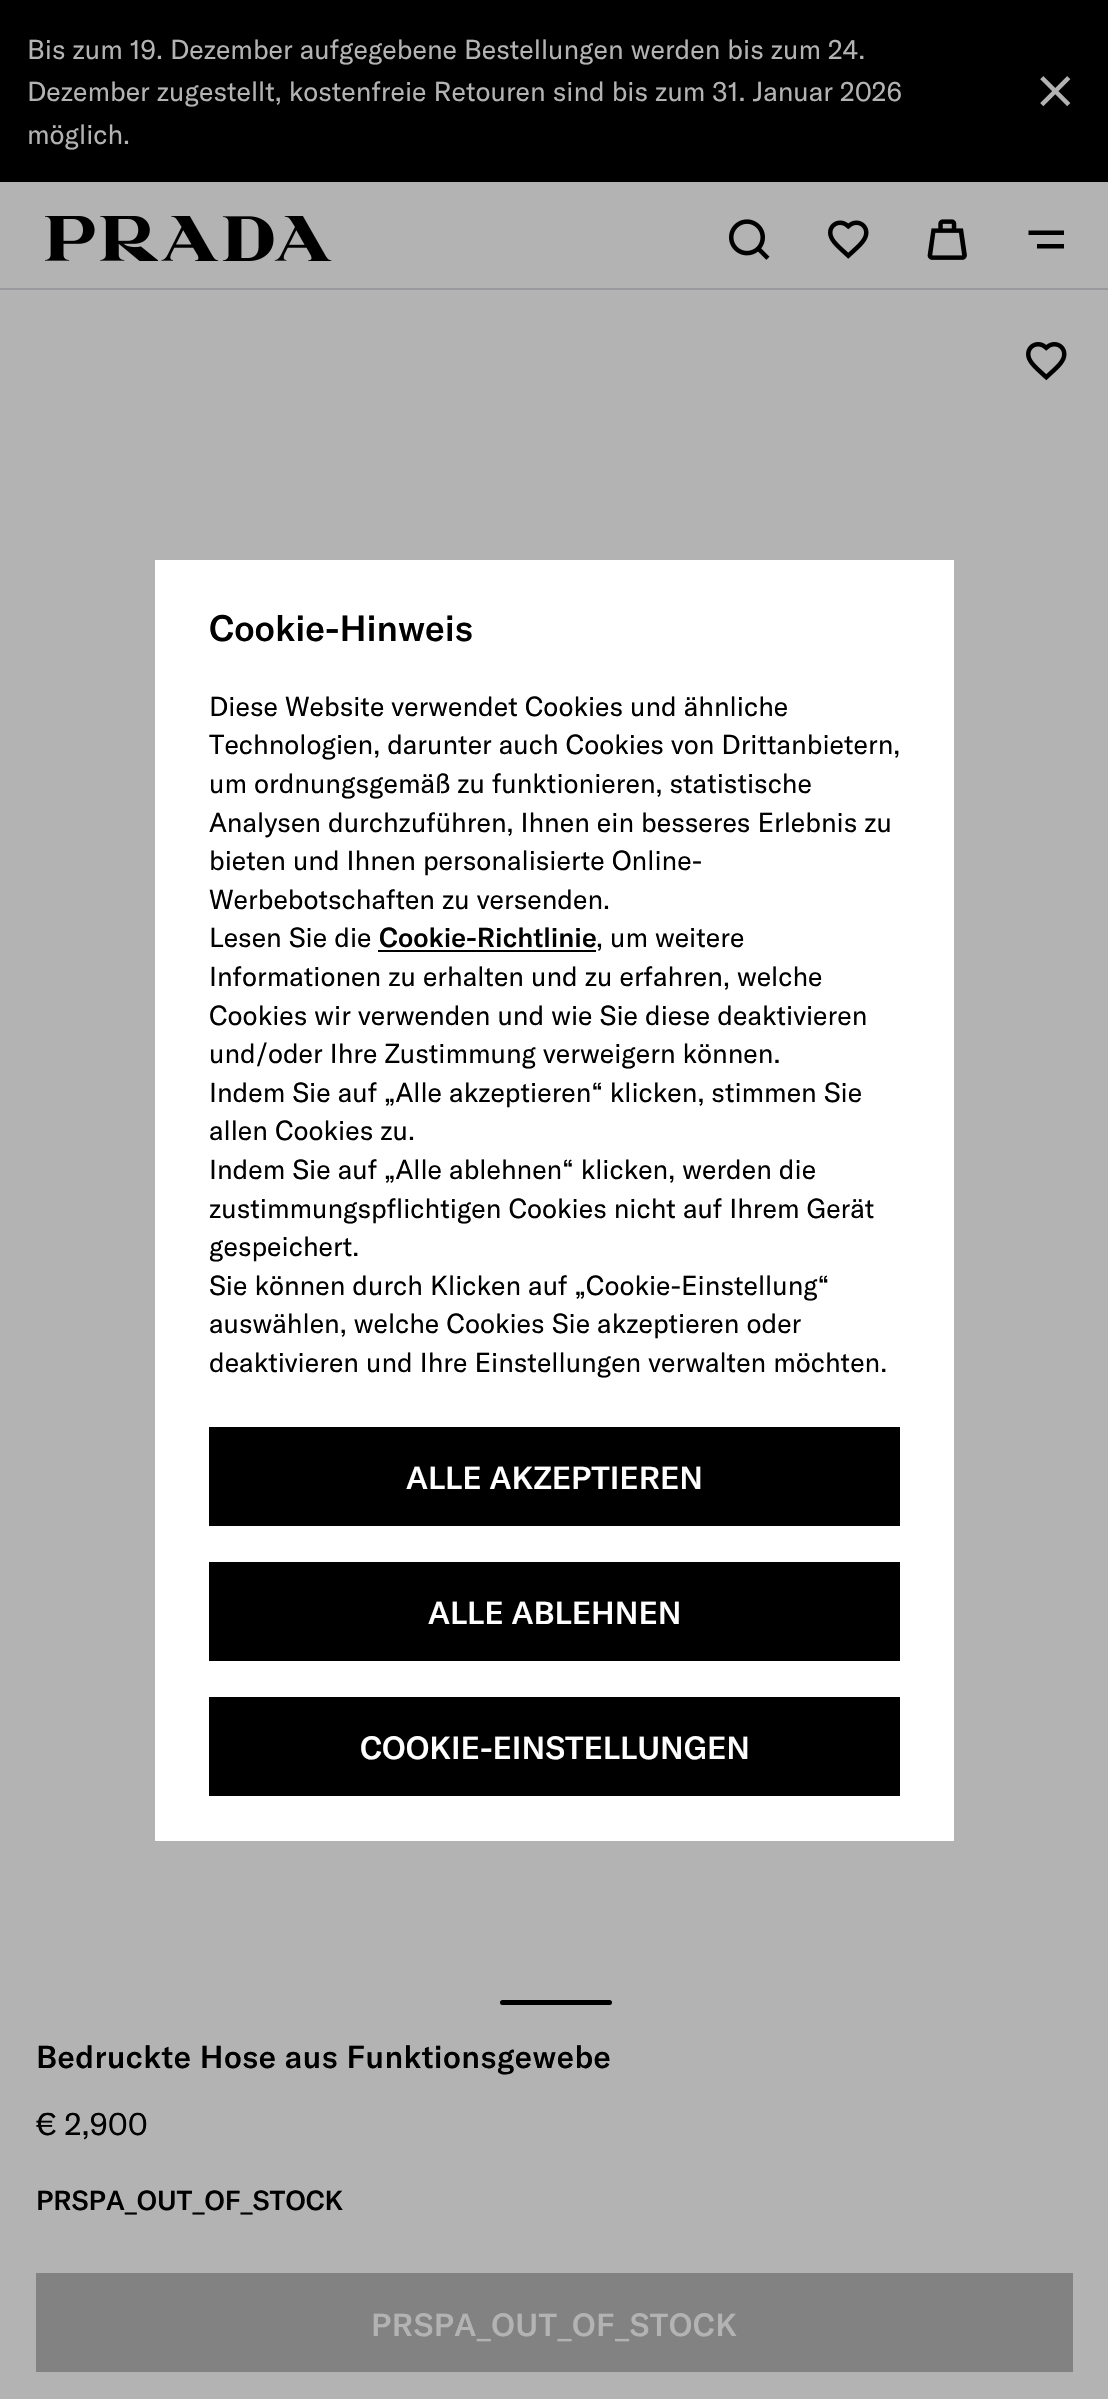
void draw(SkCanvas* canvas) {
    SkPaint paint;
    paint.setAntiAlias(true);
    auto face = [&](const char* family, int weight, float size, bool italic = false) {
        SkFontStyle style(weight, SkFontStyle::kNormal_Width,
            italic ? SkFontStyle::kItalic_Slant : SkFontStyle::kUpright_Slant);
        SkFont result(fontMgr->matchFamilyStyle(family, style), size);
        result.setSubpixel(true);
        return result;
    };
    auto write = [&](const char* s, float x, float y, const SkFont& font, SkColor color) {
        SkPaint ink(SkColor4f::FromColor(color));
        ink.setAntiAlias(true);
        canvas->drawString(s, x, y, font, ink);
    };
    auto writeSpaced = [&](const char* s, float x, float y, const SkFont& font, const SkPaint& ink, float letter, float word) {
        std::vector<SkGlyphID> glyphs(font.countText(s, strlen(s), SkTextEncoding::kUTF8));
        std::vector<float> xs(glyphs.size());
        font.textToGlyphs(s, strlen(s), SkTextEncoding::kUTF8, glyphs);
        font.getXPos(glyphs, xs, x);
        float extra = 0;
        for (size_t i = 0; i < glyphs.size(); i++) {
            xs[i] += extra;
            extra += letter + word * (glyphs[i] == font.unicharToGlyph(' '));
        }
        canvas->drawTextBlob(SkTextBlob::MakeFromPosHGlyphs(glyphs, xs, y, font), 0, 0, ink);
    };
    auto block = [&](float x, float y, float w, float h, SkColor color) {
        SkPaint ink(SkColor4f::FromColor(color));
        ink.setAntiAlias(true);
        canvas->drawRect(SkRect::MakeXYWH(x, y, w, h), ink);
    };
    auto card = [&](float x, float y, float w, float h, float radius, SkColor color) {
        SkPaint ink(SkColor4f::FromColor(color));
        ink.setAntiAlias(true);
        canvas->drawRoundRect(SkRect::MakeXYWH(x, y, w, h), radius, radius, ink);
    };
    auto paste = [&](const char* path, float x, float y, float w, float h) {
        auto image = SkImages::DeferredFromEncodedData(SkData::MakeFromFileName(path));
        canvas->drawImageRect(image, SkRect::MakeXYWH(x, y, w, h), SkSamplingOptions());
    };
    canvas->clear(SkColorSetRGB(179, 179, 179));
    block(0, 0, 1108, 182, SK_ColorBLACK);
    auto kFont1 = face("GT America", 400, 27);
    write("Bis zum 19. Dezember aufgegebene Bestellungen werden bis zum 24.", 27, 59, kFont1, SkColorSetRGB(179, 179, 179));
    write("Dezember zugestellt, kostenfreie Retouren sind bis zum 31. Januar 2026", 27, 101, kFont1, SkColorSetRGB(179, 179, 179));
    write("möglich.", 27, 144, kFont1, SkColorSetRGB(179, 179, 179));
    paste("pic1.png", 1040, 76, 31, 31);
    block(0, 288, 1108, 2, SkColorSetRGB(152, 154, 157));
    paste("pic2.png", 45, 216, 287, 45);
    paste("pic3.png", 729, 219, 41, 41);
    paste("pic4.png", 828, 220, 41, 39);
    paste("pic5.png", 927, 219, 40, 41);
    paint.setColor(SK_ColorBLACK);
    canvas->drawPath(SkPathBuilder().moveTo(1028.5f, 235).lineTo(1064, 235).lineTo(1064, 230.5f).lineTo(1028.5f, 230.5f).close().moveTo(1037, 248.5f).lineTo(1064, 248.5f).lineTo(1064, 244).lineTo(1037, 244).close().detach(), paint);
    paste("pic6.png", 1026, 342, 41, 39);
    card(500, 2000, 112, 5, 2.5f, SK_ColorBLACK);
    auto kFont2 = face("GT America", 500, 31.5f);
    writeSpaced("Bedruckte Hose aus Funktionsgewebe", 36, 2068, kFont2, paint, 0.45f, 0);
    auto kFont3 = face("GT America", 400, 31.5f);
    write("€ 2,900", 36, 2135, kFont3, SK_ColorBLACK);
    auto kFont4 = face("GT America", 500, 27);
    write("PRSPA_OUT_OF_STOCK", 36, 2210, kFont4, SK_ColorBLACK);
    block(36, 2273, 1037, 99, SkColorSetRGB(130, 130, 130));
    paint.setColor(SkColorSetRGB(179, 179, 179));
    writeSpaced("PRSPA_OUT_OF_STOCK", 371, 2336, kFont2, paint, 0.45f, 0);
    block(155, 560, 799, 1281, SK_ColorWHITE);
    auto kFont5 = face("GT America", 500, 36);
    write("Cookie-Hinweis", 209, 641, kFont5, SK_ColorBLACK);
    write("Diese Website verwendet Cookies und ähnliche", 209, 716, kFont1, SK_ColorBLACK);
    write("Technologien, darunter auch Cookies von Drittanbietern,", 209, 754, kFont1, SK_ColorBLACK);
    write("um ordnungsgemäß zu funktionieren, statistische", 209, 793, kFont1, SK_ColorBLACK);
    write("Analysen durchzuführen, Ihnen ein besseres Erlebnis zu", 209, 832, kFont1, SK_ColorBLACK);
    write("bieten und Ihnen personalisierte Online-", 209, 870, kFont1, SK_ColorBLACK);
    write("Werbebotschaften zu versenden.", 209, 909, kFont1, SK_ColorBLACK);
    write("Lesen Sie die", 209, 947, kFont1, SK_ColorBLACK);
    write("Cookie-Richtlinie", 379, 947, kFont4, SK_ColorBLACK);
    block(378, 950, 218, 2, SK_ColorBLACK);
    write(", um weitere", 596, 947, kFont1, SK_ColorBLACK);
    write("Informationen zu erhalten und zu erfahren, welche", 209, 986, kFont1, SK_ColorBLACK);
    write("Cookies wir verwenden und wie Sie diese deaktivieren", 209, 1025, kFont1, SK_ColorBLACK);
    write("und/oder Ihre Zustimmung verweigern können.", 209, 1063, kFont1, SK_ColorBLACK);
    write("Indem Sie auf „Alle akzeptieren“ klicken, stimmen Sie", 209, 1102, kFont1, SK_ColorBLACK);
    write("allen Cookies zu.", 209, 1140, kFont1, SK_ColorBLACK);
    write("Indem Sie auf „Alle ablehnen“ klicken, werden die", 209, 1179, kFont1, SK_ColorBLACK);
    write("zustimmungspflichtigen Cookies nicht auf Ihrem Gerät", 209, 1218, kFont1, SK_ColorBLACK);
    write("gespeichert.", 209, 1256, kFont1, SK_ColorBLACK);
    write("Sie können durch Klicken auf „Cookie-Einstellung“", 209, 1295, kFont1, SK_ColorBLACK);
    write("auswählen, welche Cookies Sie akzeptieren oder", 209, 1333, kFont1, SK_ColorBLACK);
    write("deaktivieren und Ihre Einstellungen verwalten möchten.", 209, 1372, kFont1, SK_ColorBLACK);
    block(209, 1427, 691, 99, SK_ColorBLACK);
    write("ALLE AKZEPTIEREN", 406, 1489, kFont2, SK_ColorWHITE);
    block(209, 1562, 691, 99, SK_ColorBLACK);
    write("ALLE ABLEHNEN", 428, 1624, kFont2, SK_ColorWHITE);
    block(209, 1697, 691, 99, SK_ColorBLACK);
    write("COOKIE-EINSTELLUNGEN", 360, 1759, kFont2, SK_ColorWHITE);
}
